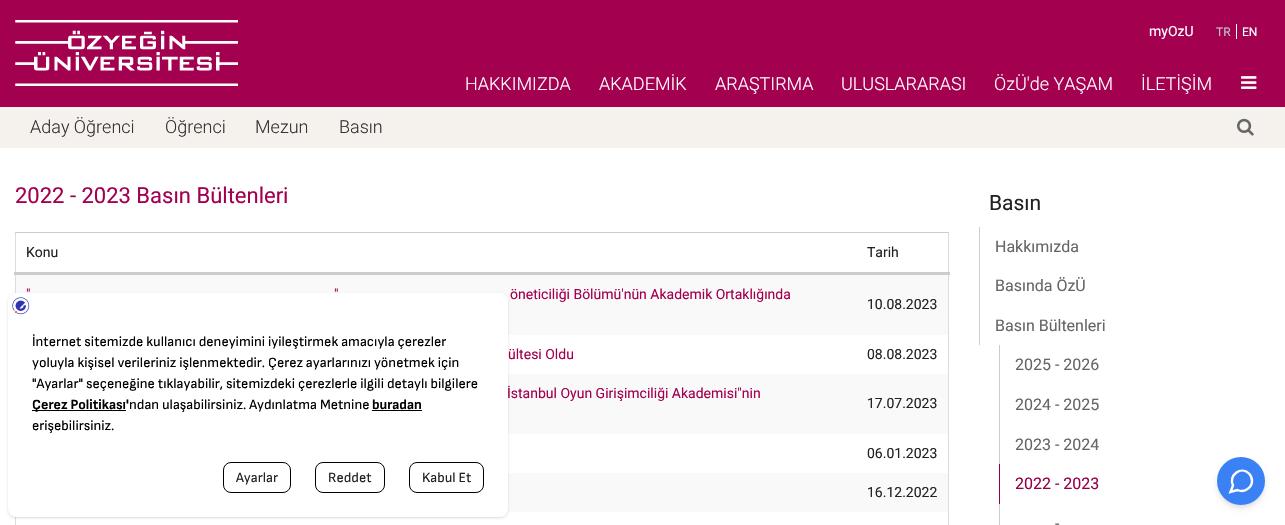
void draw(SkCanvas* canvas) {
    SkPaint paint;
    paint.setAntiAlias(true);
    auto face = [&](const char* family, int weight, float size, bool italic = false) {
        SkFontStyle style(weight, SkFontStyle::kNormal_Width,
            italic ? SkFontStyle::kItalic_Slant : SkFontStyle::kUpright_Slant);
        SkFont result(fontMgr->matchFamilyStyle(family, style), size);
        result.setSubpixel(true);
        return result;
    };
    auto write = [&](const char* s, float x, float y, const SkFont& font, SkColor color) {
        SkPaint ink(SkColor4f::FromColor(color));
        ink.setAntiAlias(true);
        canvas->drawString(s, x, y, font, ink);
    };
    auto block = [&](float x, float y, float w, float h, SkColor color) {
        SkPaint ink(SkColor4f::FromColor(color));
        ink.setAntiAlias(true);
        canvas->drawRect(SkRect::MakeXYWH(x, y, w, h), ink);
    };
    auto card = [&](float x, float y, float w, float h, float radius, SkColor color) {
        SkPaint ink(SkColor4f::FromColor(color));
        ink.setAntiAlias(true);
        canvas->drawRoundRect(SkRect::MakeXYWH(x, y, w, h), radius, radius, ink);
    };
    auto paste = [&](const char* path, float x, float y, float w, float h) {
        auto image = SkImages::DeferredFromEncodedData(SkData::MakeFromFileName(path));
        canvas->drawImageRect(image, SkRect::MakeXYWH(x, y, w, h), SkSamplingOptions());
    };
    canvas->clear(SK_ColorWHITE);
    block(0, 0, 1285, 107, SkColorSetRGB(163, 0, 80));
    paste("pic1.png", 15, 20, 223, 66);
    auto kFont1 = face("Roboto", 400, 14);
    write("myOzU", 1149, 36, kFont1, SK_ColorWHITE);
    auto kFont2 = face("Roboto", 400, 12);
    write("TR", 1216, 36, kFont2, SkColorSetRGB(194, 196, 197));
    write("EN", 1242, 36, kFont2, SK_ColorWHITE);
    block(1236, 24, 1, 15, SK_ColorWHITE);
    auto kFont3 = face("Roboto", 300, 18);
    write("HAKKIMIZDA", 465, 90, kFont3, SK_ColorWHITE);
    write("AKADEMİK", 599, 90, kFont3, SK_ColorWHITE);
    write("ARAŞTIRMA", 715, 90, kFont3, SK_ColorWHITE);
    write("ULUSLARARASI", 841, 90, kFont3, SK_ColorWHITE);
    write("ÖzÜ'de YAŞAM", 994, 90, kFont3, SK_ColorWHITE);
    write("İLETİŞİM", 1141, 90, kFont3, SK_ColorWHITE);
    paste("pic2.png", 1241, 76, 16, 13);
    block(0, 107, 1285, 41, SkColorSetRGB(245, 242, 237));
    write("Aday Öğrenci", 30, 133, kFont3, SkColorSetRGB(51, 51, 51));
    write("Öğrenci", 165, 133, kFont3, SkColorSetRGB(51, 51, 51));
    write("Mezun", 255, 133, kFont3, SkColorSetRGB(51, 51, 51));
    write("Basın", 339, 133, kFont3, SkColorSetRGB(51, 51, 51));
    paste("pic3.png", 1237, 118, 17, 18);
    auto kFont4 = face("Roboto", 400, 22);
    write("2022 - 2023 Basın Bültenleri", 15, 203, kFont4, SkColorSetRGB(163, 0, 80));
    block(948, 232, 1, 293, SkColorSetRGB(221, 221, 221));
    block(15, 232, 1, 293, SkColorSetRGB(221, 221, 221));
    block(15, 232, 934, 1, SkColorSetRGB(204, 204, 204));
    write("Konu", 26, 257, kFont1, SkColorSetRGB(34, 34, 34));
    block(14, 272, 936, 3, SkColorSetRGB(204, 204, 204));
    write("Tarih", 867, 257, kFont1, SkColorSetRGB(34, 34, 34));
    block(16, 275, 932, 60, SkColorSetRGB(249, 249, 249));
    write("\"", 26, 299, kFont1, SkColorSetRGB(163, 0, 80));
    write("\"", 334, 299, kFont1, SkColorSetRGB(163, 0, 80));
    write("öneticiliği Bölümü'nün Akademik Ortaklığında", 510, 299, kFont1, SkColorSetRGB(163, 0, 80));
    write("10.08.2023", 867, 309, kFont1, SkColorSetRGB(34, 34, 34));
    write("ültesi Oldu", 508, 359, kFont1, SkColorSetRGB(163, 0, 80));
    write("08.08.2023", 867, 359, kFont1, SkColorSetRGB(34, 34, 34));
    block(508, 374, 440, 60, SkColorSetRGB(249, 249, 249));
    write("İstanbul Oyun Girişimciliği Akademisi\"nin", 507, 398, kFont1, SkColorSetRGB(163, 0, 80));
    write("17.07.2023", 867, 408, kFont1, SkColorSetRGB(34, 34, 34));
    write("06.01.2023", 867, 458, kFont1, SkColorSetRGB(34, 34, 34));
    block(507, 473, 441, 39, SkColorSetRGB(249, 249, 249));
    write("16.12.2022", 867, 497, kFont1, SkColorSetRGB(34, 34, 34));
    auto kFont5 = face("Roboto", 400, 21);
    write("Basın", 989, 210, kFont5, SkColorSetRGB(34, 34, 34));
    block(979, 227, 1, 118, SkColorSetRGB(204, 204, 204));
    auto kFont6 = face("Roboto", 400, 16);
    write("Hakkımızda", 995, 252, kFont6, SkColorSetRGB(102, 102, 102));
    write("Basında ÖzÜ", 995, 291, kFont6, SkColorSetRGB(102, 102, 102));
    write("Basın Bültenleri", 995, 331, kFont6, SkColorSetRGB(102, 102, 102));
    block(999, 345, 1, 119, SkColorSetRGB(204, 204, 204));
    write("2025 - 2026", 1015, 370, kFont6, SkColorSetRGB(102, 102, 102));
    write("2024 - 2025", 1015, 410, kFont6, SkColorSetRGB(102, 102, 102));
    write("2023 - 2024", 1015, 450, kFont6, SkColorSetRGB(102, 102, 102));
    block(999, 464, 1, 40, SkColorSetRGB(151, 0, 71));
    write("2022 - 2023", 1015, 489, kFont6, SkColorSetRGB(151, 0, 71));
    block(999, 504, 1, 21, SkColorSetRGB(204, 204, 204));
    write("-", 1055, 529, kFont6, SkColorSetRGB(102, 102, 102));
    paint.setColor(SkColorSetARGB(26, 0, 0, 0));
    paint.setMaskFilter(SkMaskFilter::MakeBlur(kNormal_SkBlurStyle, 1));
    canvas->drawRoundRect(SkRect::MakeXYWH(9, 295, 498, 222), 7, 7, paint);
    paint.setMaskFilter(nullptr);
    paint.setMaskFilter(SkMaskFilter::MakeBlur(kNormal_SkBlurStyle, 1.5f));
    canvas->drawRoundRect(SkRect::MakeXYWH(8, 294, 500, 224), 8, 8, paint);
    paint.setMaskFilter(nullptr);
    card(8, 293, 500, 224, 8, SK_ColorWHITE);
    paste("pic4.png", 12, 297, 18, 18);
    auto kFont7 = face("Sofia Sans", 400, 14);
    write("İnternet sitemizde kullanıcı deneyimini iyileştirmek amacıyla çerezler", 32, 346, kFont7, SK_ColorBLACK);
    write("yoluyla kişisel verileriniz işlenmektedir. Çerez ayarlarınızı yönetmek için", 32, 367, kFont7, SK_ColorBLACK);
    write("\"Ayarlar\" seçeneğine tıklayabilir, sitemizdeki çerezlerle ilgili detaylı bilgilere", 32, 388, kFont7, SK_ColorBLACK);
    block(32, 410, 94, 1, SK_ColorBLACK);
    auto kFont8 = face("Sofia Sans", 700, 14);
    write("Çerez Politikası'", 32, 409, kFont8, SK_ColorBLACK);
    write("ndan ulaşabilirsiniz. Aydınlatma Metnine", 129, 409, kFont7, SK_ColorBLACK);
    write("buradan", 372, 409, kFont8, SK_ColorBLACK);
    block(372, 410, 50, 1, SK_ColorBLACK);
    write("erişebilirsiniz.", 32, 430, kFont7, SK_ColorBLACK);
    paint.setStyle(SkPaint::kStroke_Style);
    paint.setStrokeWidth(1);
    paint.setColor(SK_ColorBLACK);
    canvas->drawRoundRect(SkRect::MakeXYWH(223.5f, 462.5f, 67, 30), 7.5f, 7.5f, paint);
    write("Ayarlar", 236, 482, kFont7, SkColorSetRGB(34, 34, 34));
    canvas->drawRoundRect(SkRect::MakeXYWH(315.5f, 462.5f, 69, 30), 7.5f, 7.5f, paint);
    write("Reddet", 328, 482, kFont7, SkColorSetRGB(34, 34, 34));
    canvas->drawRoundRect(SkRect::MakeXYWH(409.5f, 462.5f, 74, 30), 7.5f, 7.5f, paint);
    write("Kabul Et", 422, 482, kFont7, SkColorSetRGB(34, 34, 34));
    paint.setStyle(SkPaint::kFill_Style);
    paint.setColor(SkColorSetARGB(26, 0, 0, 0));
    paint.setMaskFilter(SkMaskFilter::MakeBlur(kNormal_SkBlurStyle, 2));
    canvas->drawRoundRect(SkRect::MakeXYWH(1219, 461, 44, 44), 22, 22, paint);
    paint.setMaskFilter(nullptr);
    paint.setMaskFilter(SkMaskFilter::MakeBlur(kNormal_SkBlurStyle, 3));
    canvas->drawRoundRect(SkRect::MakeXYWH(1218, 462, 46, 46), 23, 23, paint);
    paint.setMaskFilter(nullptr);
    paint.setColor(SkColorSetRGB(59, 129, 246));
    canvas->drawCircle(1241, 481, 24, paint);
    paint.setStyle(SkPaint::kStroke_Style);
    paint.setStrokeWidth(2.4f);
    paint.setColor(SK_ColorWHITE);
    canvas->drawPath(SkPathBuilder().moveTo(1252, 481).cubicTo(1252, 488, 1244, 493, 1237.5f, 490).lineTo(1230.5f, 492).lineTo(1233, 485.5f).cubicTo(1228, 475.5f, 1241, 465.5f, 1249, 473.5f).cubicTo(1251, 475.5f, 1252, 478, 1252, 481).close().detach(), paint);
}
